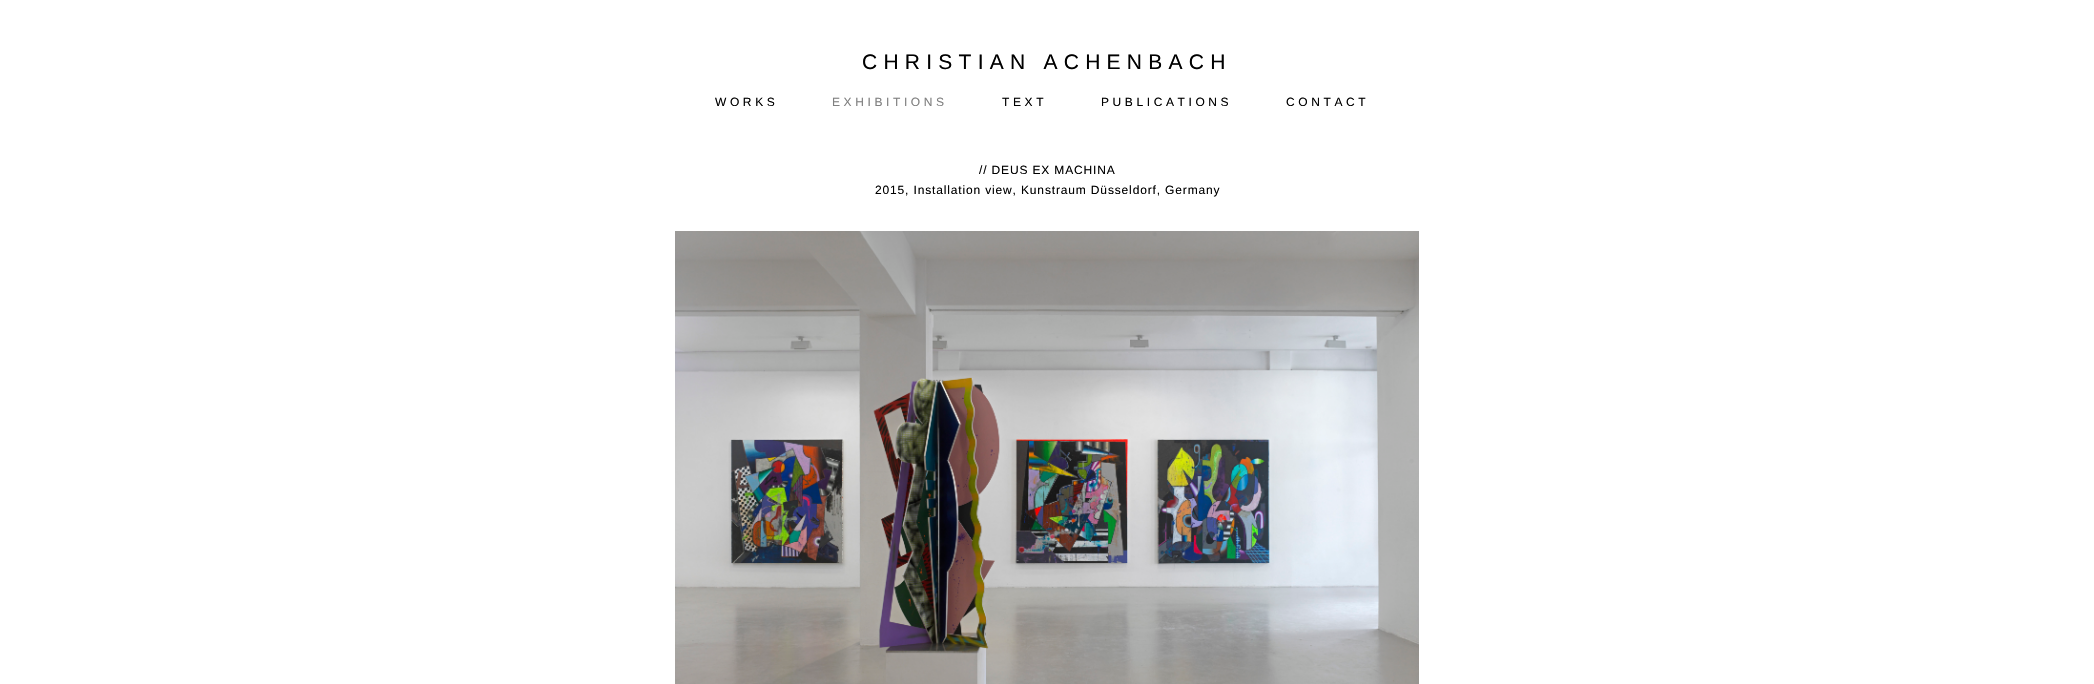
void draw(SkCanvas* canvas) {
    SkPaint paint;
    paint.setAntiAlias(true);
    auto face = [&](const char* family, int weight, float size, bool italic = false) {
        SkFontStyle style(weight, SkFontStyle::kNormal_Width,
            italic ? SkFontStyle::kItalic_Slant : SkFontStyle::kUpright_Slant);
        SkFont result(fontMgr->matchFamilyStyle(family, style), size);
        result.setSubpixel(true);
        return result;
    };
    auto writeSpaced = [&](const char* s, float x, float y, const SkFont& font, const SkPaint& ink, float letter, float word) {
        std::vector<SkGlyphID> glyphs(font.countText(s, strlen(s), SkTextEncoding::kUTF8));
        std::vector<float> xs(glyphs.size());
        font.textToGlyphs(s, strlen(s), SkTextEncoding::kUTF8, glyphs);
        font.getXPos(glyphs, xs, x);
        float extra = 0;
        for (size_t i = 0; i < glyphs.size(); i++) {
            xs[i] += extra;
            extra += letter + word * (glyphs[i] == font.unicharToGlyph(' '));
        }
        canvas->drawTextBlob(SkTextBlob::MakeFromPosHGlyphs(glyphs, xs, y, font), 0, 0, ink);
    };
    auto paste = [&](const char* path, float x, float y, float w, float h) {
        auto image = SkImages::DeferredFromEncodedData(SkData::MakeFromFileName(path));
        canvas->drawImageRect(image, SkRect::MakeXYWH(x, y, w, h), SkSamplingOptions());
    };
    canvas->clear(SK_ColorWHITE);
    auto kFont1 = face("Arimo", 400, 21);
    paint.setColor(SK_ColorBLACK);
    writeSpaced("CHRISTIAN ACHENBACH", 862, 69, kFont1, paint, 6.25f, 0);
    auto kFont2 = face("Liberation Sans", 400, 12);
    writeSpaced("WORKS", 715, 106, kFont2, paint, 3.6f, 0);
    paint.setColor(SkColorSetRGB(128, 128, 128));
    writeSpaced("EXHIBITIONS", 832, 106, kFont2, paint, 3.6f, 0);
    paint.setColor(SK_ColorBLACK);
    writeSpaced("TEXT", 1002, 106, kFont2, paint, 3.6f, 0);
    writeSpaced("PUBLICATIONS", 1101, 106, kFont2, paint, 3.6f, 0);
    writeSpaced("CONTACT", 1286, 106, kFont2, paint, 3.6f, 0);
    writeSpaced("// DEUS EX MACHINA", 979, 174, kFont2, paint, 0.85f, 0);
    writeSpaced("2015, Installation view, Kunstraum Düsseldorf, Germany", 875, 194, kFont2, paint, 0.85f, 0);
    paste("pic1.png", 675, 231, 744, 453);
}
